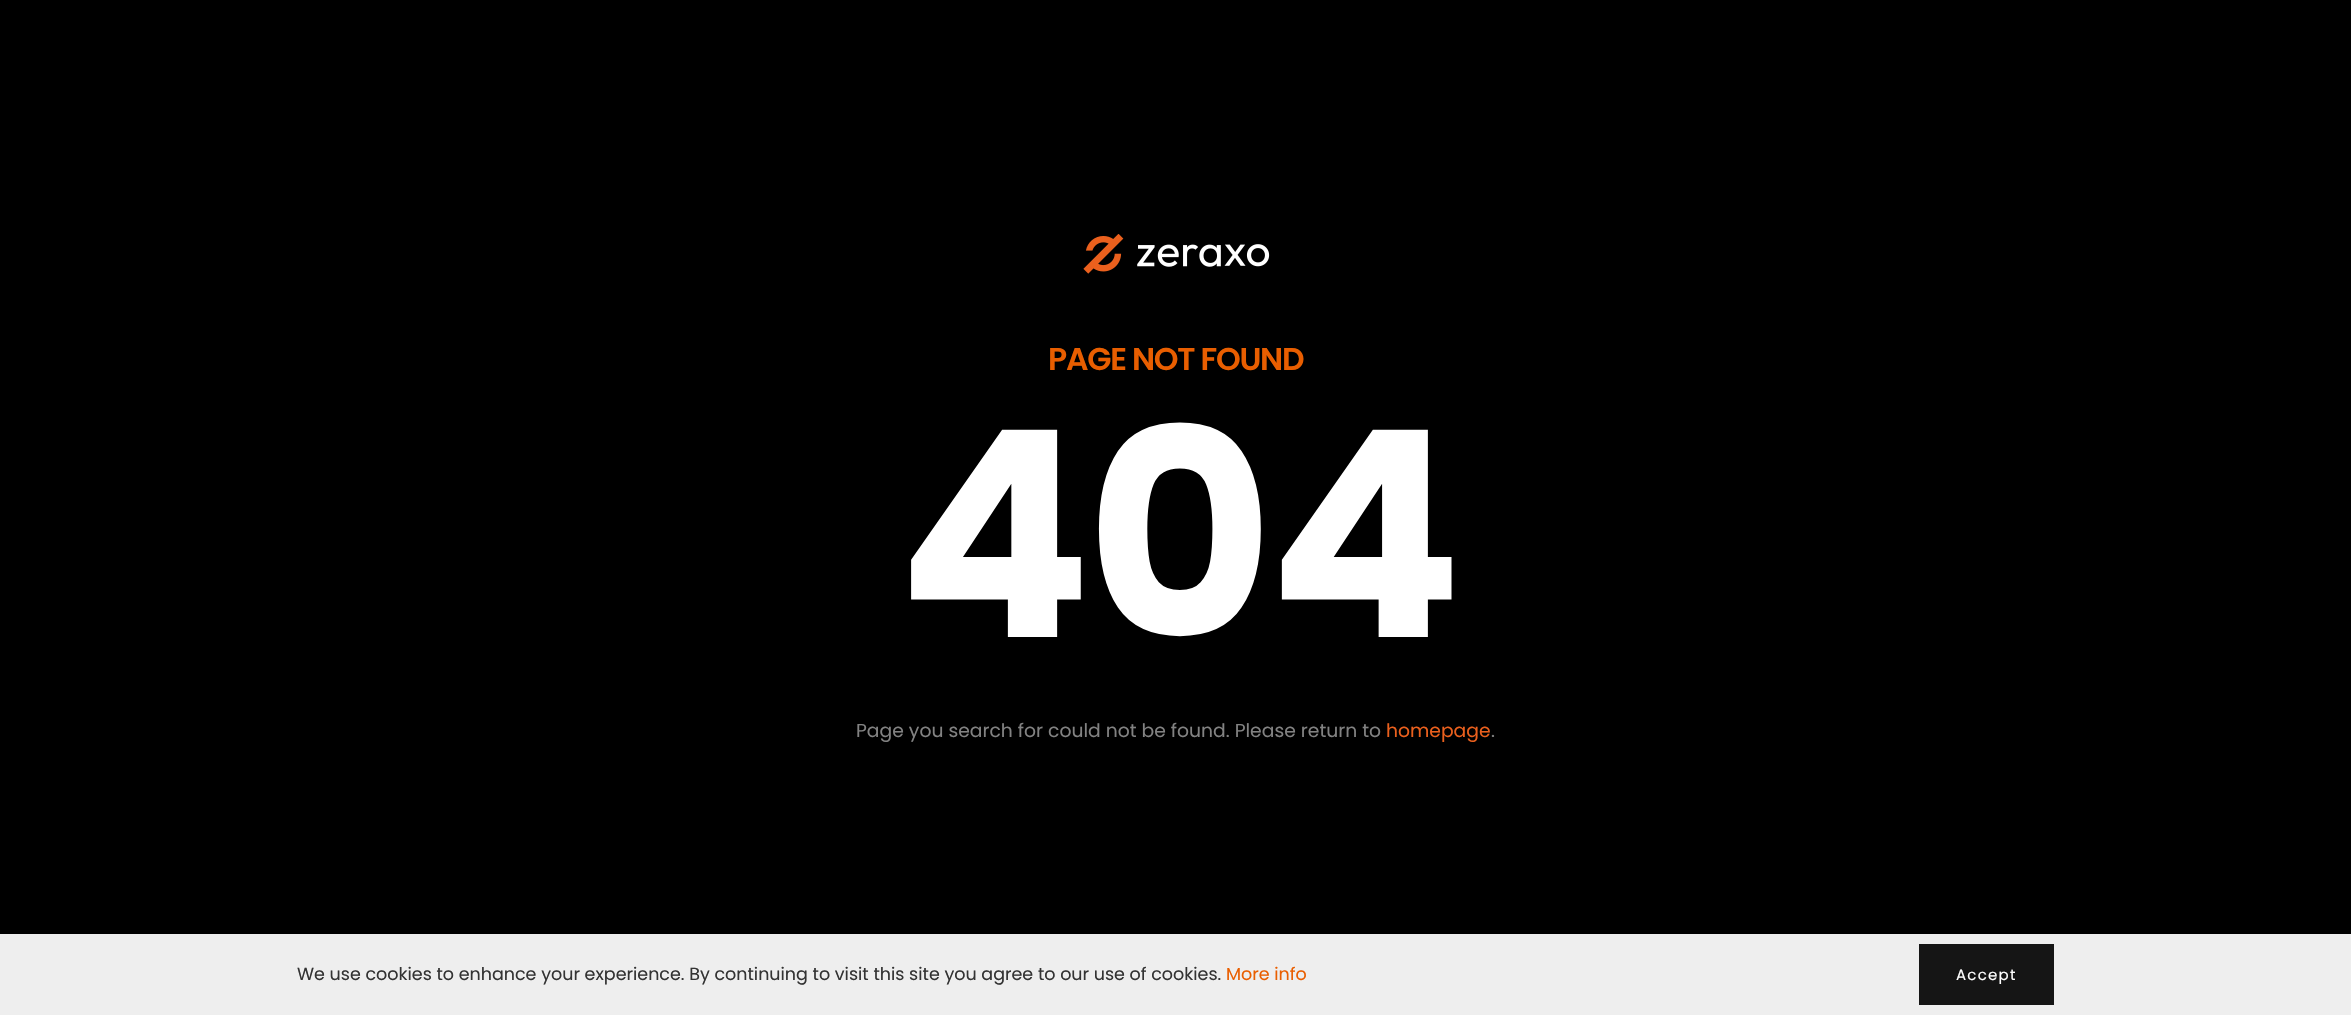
void draw(SkCanvas* canvas) {
    SkPaint paint;
    paint.setAntiAlias(true);
    auto face = [&](const char* family, int weight, float size, bool italic = false) {
        SkFontStyle style(weight, SkFontStyle::kNormal_Width,
            italic ? SkFontStyle::kItalic_Slant : SkFontStyle::kUpright_Slant);
        SkFont result(fontMgr->matchFamilyStyle(family, style), size);
        result.setSubpixel(true);
        return result;
    };
    auto write = [&](const char* s, float x, float y, const SkFont& font, SkColor color) {
        SkPaint ink(SkColor4f::FromColor(color));
        ink.setAntiAlias(true);
        canvas->drawString(s, x, y, font, ink);
    };
    auto writeSpaced = [&](const char* s, float x, float y, const SkFont& font, const SkPaint& ink, float letter, float word) {
        std::vector<SkGlyphID> glyphs(font.countText(s, strlen(s), SkTextEncoding::kUTF8));
        std::vector<float> xs(glyphs.size());
        font.textToGlyphs(s, strlen(s), SkTextEncoding::kUTF8, glyphs);
        font.getXPos(glyphs, xs, x);
        float extra = 0;
        for (size_t i = 0; i < glyphs.size(); i++) {
            xs[i] += extra;
            extra += letter + word * (glyphs[i] == font.unicharToGlyph(' '));
        }
        canvas->drawTextBlob(SkTextBlob::MakeFromPosHGlyphs(glyphs, xs, y, font), 0, 0, ink);
    };
    auto block = [&](float x, float y, float w, float h, SkColor color) {
        SkPaint ink(SkColor4f::FromColor(color));
        ink.setAntiAlias(true);
        canvas->drawRect(SkRect::MakeXYWH(x, y, w, h), ink);
    };
    auto paste = [&](const char* path, float x, float y, float w, float h) {
        auto image = SkImages::DeferredFromEncodedData(SkData::MakeFromFileName(path));
        canvas->drawImageRect(image, SkRect::MakeXYWH(x, y, w, h), SkSamplingOptions());
    };
    canvas->clear(SK_ColorBLACK);
    paste("pic1.png", 1083, 234, 187, 40);
    auto kFont1 = face("Poppins", 600, 31.5f);
    paint.setColor(SkColorSetRGB(233, 94, 0));
    writeSpaced("PAGE NOT FOUND", 1048, 370, kFont1, paint, -1.25f, 0);
    auto kFont2 = face("Poppins", 700, 288);
    paint.setColor(SK_ColorWHITE);
    writeSpaced("404", 897, 637, kFont2, paint, -6, 0);
    auto kFont3 = face("Poppins", 400, 18.75f);
    write("Page you search for could not be found. Please return to", 856, 737, kFont3, SkColorSetRGB(130, 130, 130));
    write("homepage", 1386, 737, kFont3, SkColorSetRGB(235, 96, 29));
    write(".", 1491, 737, kFont3, SkColorSetRGB(130, 130, 130));
    block(0, 934, 2351, 81, SkColorSetRGB(238, 238, 238));
    auto kFont4 = face("Poppins", 400, 17.5f);
    write("We use cookies to enhance your experience. By continuing to visit this site you agree to our use of cookies.", 297, 980, kFont4, SkColorSetRGB(51, 51, 51));
    write("More info", 1226, 980, kFont4, SkColorSetRGB(233, 94, 0));
    block(1919, 944, 135, 61, SkColorSetRGB(21, 21, 21));
    auto kFont5 = face("Poppins", 400, 15);
    writeSpaced("Accept", 1956, 980, kFont5, paint, 1.25f, 0);
}
